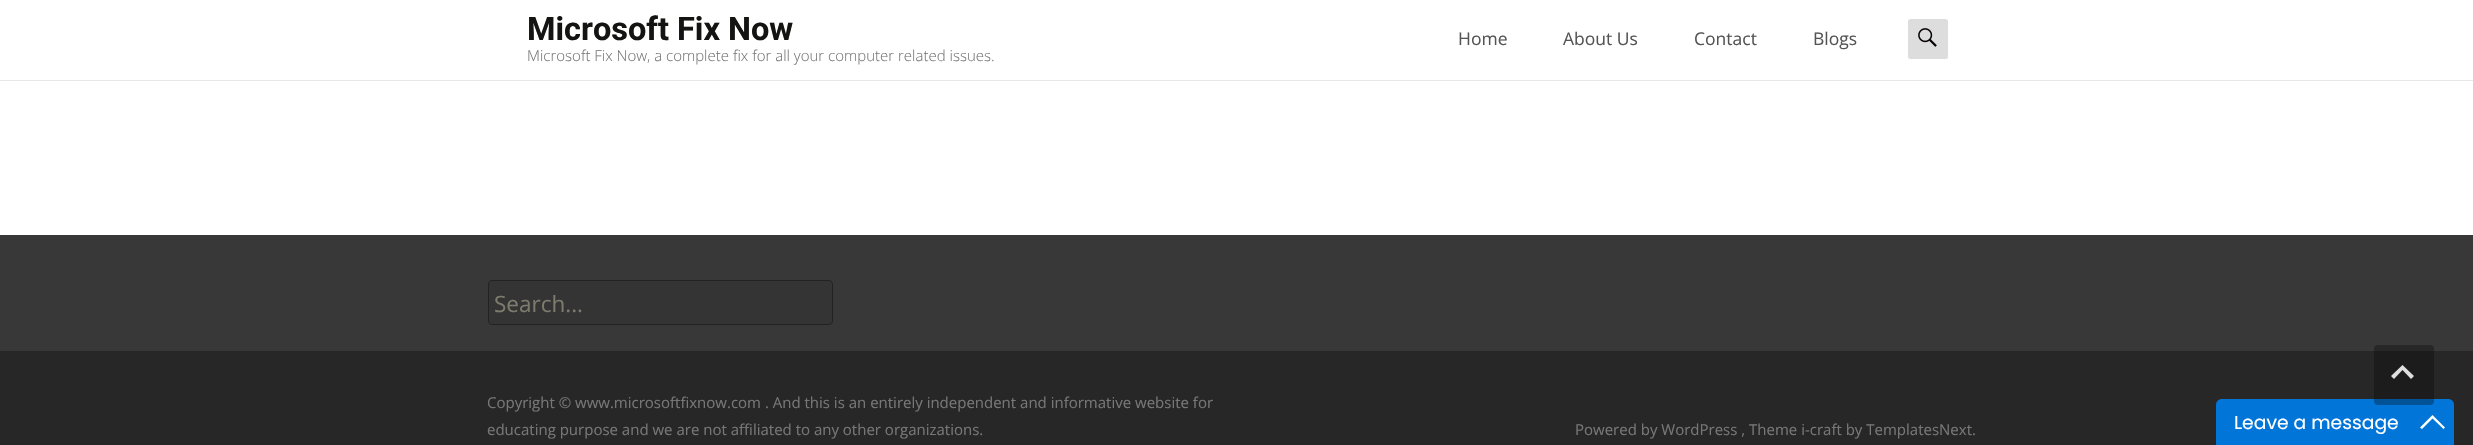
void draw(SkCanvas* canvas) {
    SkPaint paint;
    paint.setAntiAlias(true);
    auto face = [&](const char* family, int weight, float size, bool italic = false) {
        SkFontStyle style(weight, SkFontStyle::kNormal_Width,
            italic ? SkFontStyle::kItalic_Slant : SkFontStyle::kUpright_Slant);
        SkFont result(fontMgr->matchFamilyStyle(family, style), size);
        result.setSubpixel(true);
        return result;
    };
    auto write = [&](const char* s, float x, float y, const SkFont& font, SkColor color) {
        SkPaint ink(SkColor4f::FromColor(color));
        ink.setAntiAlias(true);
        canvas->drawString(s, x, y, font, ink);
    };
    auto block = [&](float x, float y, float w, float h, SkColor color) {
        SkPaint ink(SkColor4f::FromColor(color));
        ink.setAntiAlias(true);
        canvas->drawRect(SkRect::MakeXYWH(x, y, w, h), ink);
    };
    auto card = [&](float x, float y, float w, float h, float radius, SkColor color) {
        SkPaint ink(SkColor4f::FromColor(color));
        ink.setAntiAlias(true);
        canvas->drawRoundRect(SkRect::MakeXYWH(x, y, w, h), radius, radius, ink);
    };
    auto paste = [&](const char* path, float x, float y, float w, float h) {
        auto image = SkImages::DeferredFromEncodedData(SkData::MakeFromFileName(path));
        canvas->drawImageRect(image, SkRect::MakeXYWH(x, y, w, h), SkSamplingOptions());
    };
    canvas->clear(SK_ColorWHITE);
    block(0, 80, 2473, 1, SkColorSetRGB(231, 231, 231));
    auto kFont1 = face("Roboto", 700, 32.5f);
    write("Microsoft Fix Now", 527, 40, kFont1, SkColorSetRGB(20, 20, 18));
    auto kFont2 = face("Open Sans", 300, 15);
    write("Microsoft Fix Now, a complete fix for all your computer related issues.", 527, 61, kFont2, SkColorSetRGB(119, 119, 119));
    auto kFont3 = face("Open Sans", 400, 17.5f);
    write("Home", 1458, 45, kFont3, SkColorSetRGB(84, 84, 84));
    write("About Us", 1563, 45, kFont3, SkColorSetRGB(84, 84, 84));
    write("Contact", 1694, 45, kFont3, SkColorSetRGB(84, 84, 84));
    write("Blogs", 1813, 45, kFont3, SkColorSetRGB(84, 84, 84));
    card(1908, 19, 40, 40, 2.5f, SkColorSetRGB(221, 221, 221));
    paste("pic1.png", 1918, 28, 19, 19);
    block(0, 351, 2473, 94, SkColorSetRGB(39, 39, 39));
    block(0, 235, 2473, 116, SkColorSetRGB(56, 56, 56));
    paint.setColor(SkColorSetRGB(52, 52, 52));
    canvas->drawRoundRect(SkRect::MakeXYWH(488.5f, 280.5f, 344, 44), 3.5f, 3.5f, paint);
    paint.setStyle(SkPaint::kStroke_Style);
    paint.setStrokeWidth(1);
    paint.setColor(SkColorSetRGB(34, 34, 34));
    canvas->drawRoundRect(SkRect::MakeXYWH(488.5f, 280.5f, 344, 44), 3.5f, 3.5f, paint);
    auto kFont4 = face("Open Sans", 400, 22.5f);
    write("Search...", 494, 312, kFont4, SkColorSetRGB(125, 123, 109));
    auto kFont5 = face("Open Sans", 400, 15);
    write("Copyright © www.microsoftfixnow.com . And this is an entirely independent and informative website for", 487, 408, kFont5, SkColorSetRGB(119, 119, 119));
    write("educating purpose and we are not affiliated to any other organizations.", 487, 435, kFont5, SkColorSetRGB(119, 119, 119));
    write("Powered by WordPress , Theme i-craft by TemplatesNext.", 1575, 435, kFont5, SkColorSetRGB(119, 119, 119));
    paint.setStyle(SkPaint::kFill_Style);
    paint.setColor(SkColorSetRGB(2, 117, 216));
    canvas->drawPath(SkPathBuilder().moveTo(2222, 399).lineTo(2448, 399).cubicTo(2451.5f, 399, 2454, 401.5f, 2454, 405).lineTo(2454, 445).lineTo(2216, 445).lineTo(2216, 405).cubicTo(2216, 401.5f, 2218.5f, 399, 2222, 399).close().detach(), paint);
    card(2374, 345, 60, 60, 4, SkColorSetARGB(77, 0, 0, 0));
    paint.setColor(SkColorSetRGB(223, 223, 223));
    canvas->drawPath(SkPathBuilder().moveTo(2391, 376).lineTo(2402.5f, 365).lineTo(2414, 376).lineTo(2411, 379).lineTo(2402.5f, 370).lineTo(2394, 379).close().detach(), paint);
    auto kFont6 = face("Poppins", 400, 18.75f);
    write("Leave a message", 2234, 429, kFont6, SK_ColorWHITE);
    paint.setColor(SK_ColorWHITE);
    canvas->drawPath(SkPathBuilder().moveTo(2432.5f, 415).lineTo(2445, 427.5f).lineTo(2443.5f, 429).lineTo(2432.5f, 418.5f).lineTo(2422, 429).lineTo(2420, 427.5f).close().detach(), paint);
}
